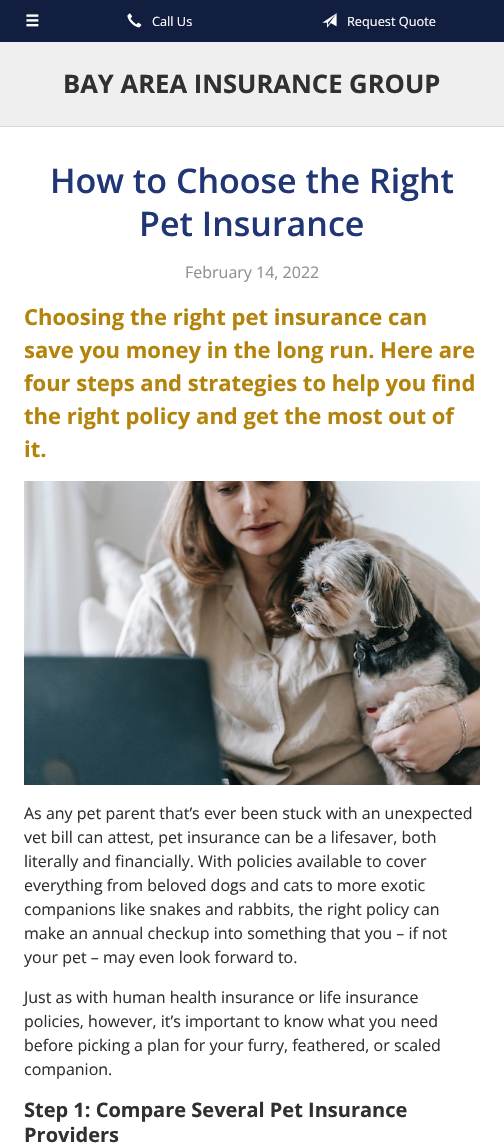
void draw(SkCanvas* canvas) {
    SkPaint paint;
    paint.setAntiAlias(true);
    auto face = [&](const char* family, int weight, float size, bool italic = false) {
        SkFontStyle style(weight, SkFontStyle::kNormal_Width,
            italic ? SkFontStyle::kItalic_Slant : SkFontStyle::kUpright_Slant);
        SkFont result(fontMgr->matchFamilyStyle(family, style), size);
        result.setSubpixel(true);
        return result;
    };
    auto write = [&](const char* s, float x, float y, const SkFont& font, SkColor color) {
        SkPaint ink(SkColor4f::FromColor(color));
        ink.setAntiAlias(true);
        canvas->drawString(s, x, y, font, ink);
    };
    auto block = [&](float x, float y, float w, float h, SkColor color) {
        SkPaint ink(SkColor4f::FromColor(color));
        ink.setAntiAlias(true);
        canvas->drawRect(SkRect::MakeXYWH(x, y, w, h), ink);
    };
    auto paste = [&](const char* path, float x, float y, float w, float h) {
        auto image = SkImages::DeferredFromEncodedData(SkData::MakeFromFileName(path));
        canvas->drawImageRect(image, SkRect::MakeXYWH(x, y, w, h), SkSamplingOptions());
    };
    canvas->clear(SkColorSetRGB(17, 30, 64));
    paste("pic1.png", 26, 14, 13, 13);
    paste("pic2.png", 127, 13, 15, 15);
    auto kFont1 = face("Open Sans", 400, 12.75f);
    write("Call Us", 152, 26, kFont1, SK_ColorWHITE);
    paste("pic3.png", 322, 13, 15, 15);
    write("Request Quote", 347, 26, kFont1, SK_ColorWHITE);
    block(0, 42, 504, 84, SkColorSetRGB(239, 239, 239));
    block(0, 126, 504, 1, SkColorSetRGB(215, 215, 215));
    auto kFont2 = face("Open Sans", 700, 25.6f);
    write("BAY AREA INSURANCE GROUP", 63, 93, kFont2, SkColorSetRGB(48, 48, 48));
    block(0, 127, 504, 1017, SK_ColorWHITE);
    auto kFont3 = face("Open Sans", 600, 34);
    write("How to Choose the Right", 50, 193, kFont3, SkColorSetRGB(32, 54, 117));
    write("Pet Insurance", 139, 236, kFont3, SkColorSetRGB(32, 54, 117));
    auto kFont4 = face("Open Sans", 400, 16);
    write("February 14, 2022", 185, 278, kFont4, SkColorSetRGB(144, 144, 144));
    auto kFont5 = face("Open Sans", 700, 22);
    write("Choosing the right pet insurance can", 24, 325, kFont5, SkColorSetRGB(179, 131, 12));
    write("save you money in the long run. Here are", 24, 358, kFont5, SkColorSetRGB(179, 131, 12));
    write("four steps and strategies to help you find", 24, 391, kFont5, SkColorSetRGB(179, 131, 12));
    write("the right policy and get the most out of", 24, 424, kFont5, SkColorSetRGB(179, 131, 12));
    write("it.", 24, 457, kFont5, SkColorSetRGB(179, 131, 12));
    paste("pic4.png", 24, 481, 456, 304);
    write("As any pet parent that’s ever been stuck with an unexpected", 24, 819, kFont4, SkColorSetRGB(48, 48, 48));
    write("vet bill can attest, pet insurance can be a lifesaver, both", 24, 843, kFont4, SkColorSetRGB(48, 48, 48));
    write("literally and financially. With policies available to cover", 24, 867, kFont4, SkColorSetRGB(48, 48, 48));
    write("everything from beloved dogs and cats to more exotic", 24, 891, kFont4, SkColorSetRGB(48, 48, 48));
    write("companions like snakes and rabbits, the right policy can", 24, 915, kFont4, SkColorSetRGB(48, 48, 48));
    write("make an annual checkup into something that you – if not", 24, 939, kFont4, SkColorSetRGB(48, 48, 48));
    write("your pet – may even look forward to.", 24, 963, kFont4, SkColorSetRGB(48, 48, 48));
    write("Just as with human health insurance or life insurance", 24, 1003, kFont4, SkColorSetRGB(48, 48, 48));
    write("policies, however, it’s important to know what you need", 24, 1027, kFont4, SkColorSetRGB(48, 48, 48));
    write("before picking a plan for your furry, feathered, or scaled", 24, 1051, kFont4, SkColorSetRGB(48, 48, 48));
    write("companion.", 24, 1075, kFont4, SkColorSetRGB(48, 48, 48));
    auto kFont6 = face("Open Sans", 700, 20);
    write("Step 1: Compare Several Pet Insurance", 24, 1117, kFont6, SkColorSetRGB(48, 48, 48));
    write("Providers", 24, 1142, kFont6, SkColorSetRGB(48, 48, 48));
}
